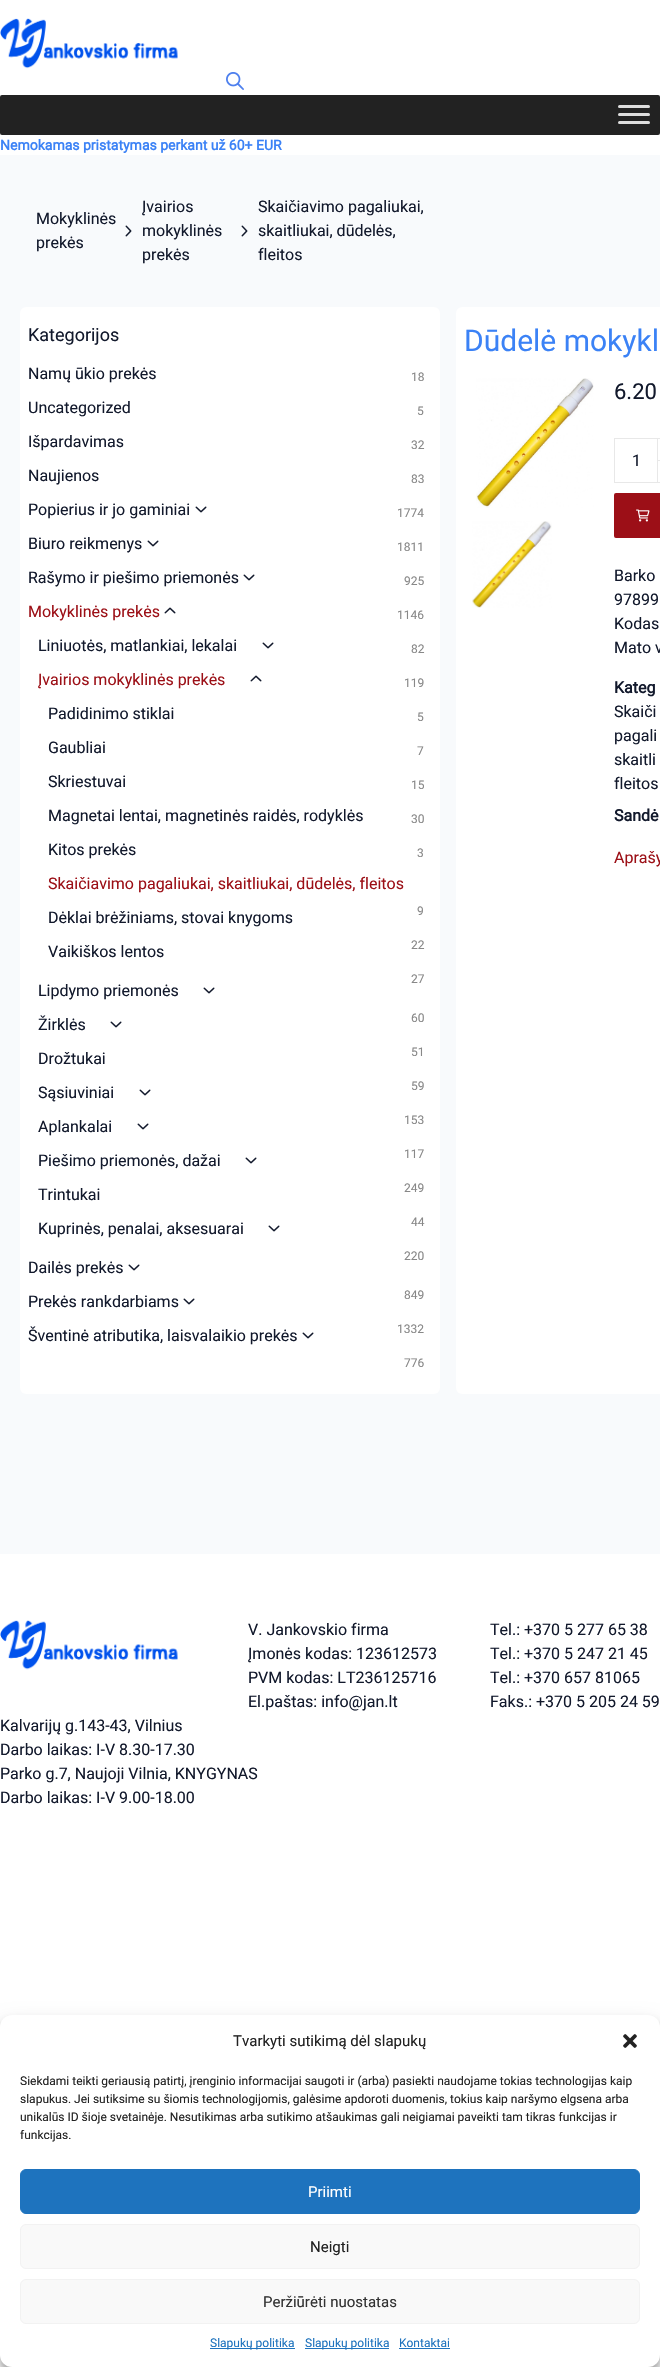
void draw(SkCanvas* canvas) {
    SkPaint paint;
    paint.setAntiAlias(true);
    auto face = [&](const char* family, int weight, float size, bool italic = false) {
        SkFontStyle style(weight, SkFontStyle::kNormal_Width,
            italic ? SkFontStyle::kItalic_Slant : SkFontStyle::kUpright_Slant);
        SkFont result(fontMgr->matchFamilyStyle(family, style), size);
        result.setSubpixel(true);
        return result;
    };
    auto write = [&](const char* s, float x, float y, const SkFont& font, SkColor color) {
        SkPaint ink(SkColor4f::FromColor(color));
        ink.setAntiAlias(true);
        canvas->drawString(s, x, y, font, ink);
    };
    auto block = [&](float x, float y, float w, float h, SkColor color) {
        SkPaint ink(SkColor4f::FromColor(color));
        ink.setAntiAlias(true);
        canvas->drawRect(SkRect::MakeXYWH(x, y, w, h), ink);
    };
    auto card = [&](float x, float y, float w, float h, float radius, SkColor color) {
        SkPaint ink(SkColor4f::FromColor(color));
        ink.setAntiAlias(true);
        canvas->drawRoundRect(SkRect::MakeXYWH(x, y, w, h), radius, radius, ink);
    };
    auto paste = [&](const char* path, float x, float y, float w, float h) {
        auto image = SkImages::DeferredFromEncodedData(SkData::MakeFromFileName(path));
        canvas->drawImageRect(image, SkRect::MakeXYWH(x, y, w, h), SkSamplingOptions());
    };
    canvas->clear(SK_ColorWHITE);
    paste("pic1.png", 0, 18, 178, 51);
    paste("pic2.png", 226, 72, 18, 18);
    card(0, 95, 660, 40, 2, SkColorSetRGB(34, 34, 34));
    card(618, 105, 32, 3, 1.5f, SkColorSetRGB(221, 221, 221));
    card(618, 113, 32, 3, 1.5f, SkColorSetRGB(221, 221, 221));
    card(618, 121, 32, 3, 1.5f, SkColorSetRGB(221, 221, 221));
    auto kFont1 = face("Roboto", 700, 14);
    write("Nemokamas pristatymas perkant už 60+ EUR", 0, 150, kFont1, SkColorSetRGB(59, 130, 246));
    block(0, 155, 660, 1399, SkColorSetRGB(248, 250, 252));
    auto kFont2 = face("Roboto", 400, 16);
    write("Mokyklinės", 36, 224, kFont2, SkColorSetRGB(18, 25, 44));
    write("prekės", 36, 248, kFont2, SkColorSetRGB(18, 25, 44));
    paste("pic3.png", 125, 225, 7, 12);
    write("Įvairios", 142, 212, kFont2, SkColorSetRGB(18, 25, 44));
    write("mokyklinės", 142, 236, kFont2, SkColorSetRGB(18, 25, 44));
    write("prekės", 142, 260, kFont2, SkColorSetRGB(18, 25, 44));
    paste("pic3.png", 241, 225, 7, 12);
    write("Skaičiavimo pagaliukai,", 258, 212, kFont2, SkColorSetRGB(18, 25, 44));
    write("skaitliukai, dūdelės,", 258, 236, kFont2, SkColorSetRGB(18, 25, 44));
    write("fleitos", 258, 260, kFont2, SkColorSetRGB(18, 25, 44));
    card(20, 307, 420, 1087, 6, SK_ColorWHITE);
    auto kFont3 = face("Roboto", 400, 18);
    write("Kategorijos", 28, 341, kFont3, SkColorSetRGB(18, 25, 44));
    write("Namų ūkio prekės", 28, 379, kFont2, SkColorSetRGB(18, 25, 44));
    auto kFont4 = face("Roboto", 400, 12);
    write("18", 411, 381, kFont4, SkColorSetRGB(136, 136, 136));
    write("Uncategorized", 28, 413, kFont2, SkColorSetRGB(18, 25, 44));
    write("5", 417, 415, kFont4, SkColorSetRGB(136, 136, 136));
    write("Išpardavimas", 28, 447, kFont2, SkColorSetRGB(18, 25, 44));
    write("32", 411, 449, kFont4, SkColorSetRGB(136, 136, 136));
    write("Naujienos", 28, 481, kFont2, SkColorSetRGB(18, 25, 44));
    write("83", 411, 483, kFont4, SkColorSetRGB(136, 136, 136));
    write("Popierius ir jo gaminiai", 28, 515, kFont2, SkColorSetRGB(18, 25, 44));
    paste("pic4.png", 195, 506, 12, 7);
    write("1774", 397, 517, kFont4, SkColorSetRGB(136, 136, 136));
    write("Biuro reikmenys", 28, 549, kFont2, SkColorSetRGB(18, 25, 44));
    paste("pic4.png", 147, 540, 12, 7);
    write("1811", 397, 551, kFont4, SkColorSetRGB(136, 136, 136));
    write("Rašymo ir piešimo priemonės", 28, 583, kFont2, SkColorSetRGB(18, 25, 44));
    paste("pic4.png", 243, 574, 12, 7);
    write("925", 404, 585, kFont4, SkColorSetRGB(136, 136, 136));
    write("Mokyklinės prekės", 28, 617, kFont2, SkColorSetRGB(156, 16, 23));
    paste("pic5.png", 164, 607, 12, 7);
    write("1146", 397, 619, kFont4, SkColorSetRGB(136, 136, 136));
    write("Liniuotės, matlankiai, lekalai", 38, 651, kFont2, SkColorSetRGB(18, 25, 44));
    paste("pic4.png", 262, 642, 12, 7);
    write("82", 411, 653, kFont4, SkColorSetRGB(136, 136, 136));
    write("Įvairios mokyklinės prekės", 38, 685, kFont2, SkColorSetRGB(156, 16, 23));
    paste("pic5.png", 250, 675, 12, 7);
    write("119", 404, 687, kFont4, SkColorSetRGB(136, 136, 136));
    write("Padidinimo stiklai", 48, 719, kFont2, SkColorSetRGB(18, 25, 44));
    write("5", 417, 721, kFont4, SkColorSetRGB(136, 136, 136));
    write("Gaubliai", 48, 753, kFont2, SkColorSetRGB(18, 25, 44));
    write("7", 417, 755, kFont4, SkColorSetRGB(136, 136, 136));
    write("Skriestuvai", 48, 787, kFont2, SkColorSetRGB(18, 25, 44));
    write("15", 411, 789, kFont4, SkColorSetRGB(136, 136, 136));
    write("Magnetai lentai, magnetinės raidės, rodyklės", 48, 821, kFont2, SkColorSetRGB(18, 25, 44));
    write("30", 411, 823, kFont4, SkColorSetRGB(136, 136, 136));
    write("Kitos prekės", 48, 855, kFont2, SkColorSetRGB(18, 25, 44));
    write("3", 417, 857, kFont4, SkColorSetRGB(136, 136, 136));
    write("Skaičiavimo pagaliukai, skaitliukai, dūdelės, fleitos", 48, 889, kFont2, SkColorSetRGB(156, 16, 23));
    write("9", 417, 915, kFont4, SkColorSetRGB(136, 136, 136));
    write("Dėklai brėžiniams, stovai knygoms", 48, 923, kFont2, SkColorSetRGB(18, 25, 44));
    write("22", 411, 949, kFont4, SkColorSetRGB(136, 136, 136));
    write("Vaikiškos lentos", 48, 957, kFont2, SkColorSetRGB(18, 25, 44));
    write("27", 411, 983, kFont4, SkColorSetRGB(136, 136, 136));
    write("Lipdymo priemonės", 38, 996, kFont2, SkColorSetRGB(18, 25, 44));
    paste("pic4.png", 203, 987, 12, 7);
    write("60", 411, 1022, kFont4, SkColorSetRGB(136, 136, 136));
    write("Žirklės", 38, 1030, kFont2, SkColorSetRGB(18, 25, 44));
    paste("pic4.png", 110, 1021, 12, 7);
    write("51", 411, 1056, kFont4, SkColorSetRGB(136, 136, 136));
    write("Drožtukai", 38, 1064, kFont2, SkColorSetRGB(18, 25, 44));
    write("59", 411, 1090, kFont4, SkColorSetRGB(136, 136, 136));
    write("Sąsiuviniai", 38, 1098, kFont2, SkColorSetRGB(18, 25, 44));
    paste("pic4.png", 139, 1089, 12, 7);
    write("153", 404, 1124, kFont4, SkColorSetRGB(136, 136, 136));
    write("Aplankalai", 38, 1132, kFont2, SkColorSetRGB(18, 25, 44));
    paste("pic4.png", 137, 1123, 12, 7);
    write("117", 404, 1158, kFont4, SkColorSetRGB(136, 136, 136));
    write("Piešimo priemonės, dažai", 38, 1166, kFont2, SkColorSetRGB(18, 25, 44));
    paste("pic4.png", 245, 1157, 12, 7);
    write("249", 404, 1192, kFont4, SkColorSetRGB(136, 136, 136));
    write("Trintukai", 38, 1200, kFont2, SkColorSetRGB(18, 25, 44));
    write("44", 411, 1226, kFont4, SkColorSetRGB(136, 136, 136));
    write("Kuprinės, penalai, aksesuarai", 38, 1234, kFont2, SkColorSetRGB(18, 25, 44));
    paste("pic4.png", 268, 1225, 12, 7);
    write("220", 404, 1260, kFont4, SkColorSetRGB(136, 136, 136));
    write("Dailės prekės", 28, 1273, kFont2, SkColorSetRGB(18, 25, 44));
    paste("pic4.png", 128, 1264, 12, 7);
    write("849", 404, 1299, kFont4, SkColorSetRGB(136, 136, 136));
    write("Prekės rankdarbiams", 28, 1307, kFont2, SkColorSetRGB(18, 25, 44));
    paste("pic4.png", 183, 1298, 12, 7);
    write("1332", 397, 1333, kFont4, SkColorSetRGB(136, 136, 136));
    write("Šventinė atributika, laisvalaikio prekės", 28, 1341, kFont2, SkColorSetRGB(18, 25, 44));
    paste("pic4.png", 302, 1332, 12, 7);
    write("776", 404, 1367, kFont4, SkColorSetRGB(136, 136, 136));
    card(456, 307, 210, 1087, 6, SK_ColorWHITE);
    auto kFont5 = face("Roboto", 400, 30);
    write("Dūdelė mokykl", 464, 351, kFont5, SkColorSetRGB(59, 130, 246));
    paste("pic6.png", 476, 378, 118, 130);
    paste("pic7.png", 472, 521, 80, 87);
    auto kFont6 = face("Roboto", 400, 22);
    write("6.20", 614, 399, kFont6, SkColorSetRGB(18, 25, 44));
    paint.setStyle(SkPaint::kStroke_Style);
    paint.setStrokeWidth(1);
    paint.setColor(SkColorSetRGB(232, 232, 232));
    canvas->drawRect(SkRect::MakeXYWH(614.5f, 438.5f, 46, 44), paint);
    block(657, 439, 1, 43, SkColorSetRGB(232, 232, 232));
    write("1", 632, 466, kFont2, SkColorSetRGB(18, 25, 44));
    block(658, 460, 2, 1, SkColorSetRGB(232, 232, 232));
    paint.setStyle(SkPaint::kFill_Style);
    paint.setColor(SkColorSetRGB(156, 15, 23));
    canvas->drawRoundRect(SkRect::MakeXYWH(615, 494, 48, 43), 1, 1, paint);
    paint.setStyle(SkPaint::kStroke_Style);
    paint.setStrokeWidth(2);
    canvas->drawRoundRect(SkRect::MakeXYWH(615, 494, 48, 43), 1, 1, paint);
    paste("pic8.png", 636, 509, 14, 13);
    write("Barko", 614, 581, kFont2, SkColorSetRGB(18, 25, 44));
    write("97899", 614, 605, kFont2, SkColorSetRGB(18, 25, 44));
    write("Kodas", 614, 629, kFont2, SkColorSetRGB(18, 25, 44));
    write("Mato v", 614, 653, kFont2, SkColorSetRGB(18, 25, 44));
    auto kFont7 = face("Roboto", 700, 16);
    write("Kateg", 614, 693, kFont7, SkColorSetRGB(18, 25, 44));
    write("Skaiči", 614, 717, kFont2, SkColorSetRGB(18, 25, 44));
    write("pagali", 614, 741, kFont2, SkColorSetRGB(18, 25, 44));
    write("skaitli", 614, 765, kFont2, SkColorSetRGB(18, 25, 44));
    write("fleitos", 614, 789, kFont2, SkColorSetRGB(18, 25, 44));
    write("Sandė", 614, 821, kFont7, SkColorSetRGB(18, 25, 44));
    write("Aprašy", 614, 863, kFont2, SkColorSetRGB(156, 16, 23));
    paste("pic9.png", 0, 1620, 178, 50);
    write("V. Jankovskio firma", 248, 1635, kFont2, SkColorSetRGB(18, 25, 44));
    write("Įmonės kodas: 123612573", 248, 1659, kFont2, SkColorSetRGB(18, 25, 44));
    write("PVM kodas: LT236125716", 248, 1683, kFont2, SkColorSetRGB(18, 25, 44));
    write("El.paštas: info@jan.lt", 248, 1707, kFont2, SkColorSetRGB(18, 25, 44));
    write("Tel.: +370 5 277 65 38", 490, 1635, kFont2, SkColorSetRGB(18, 25, 44));
    write("Tel.: +370 5 247 21 45", 490, 1659, kFont2, SkColorSetRGB(18, 25, 44));
    write("Tel.: +370 657 81065", 490, 1683, kFont2, SkColorSetRGB(18, 25, 44));
    write("Faks.: +370 5 205 24 59", 490, 1707, kFont2, SkColorSetRGB(18, 25, 44));
    write("Kalvarijų g.143-43, Vilnius", 0, 1731, kFont2, SkColorSetRGB(18, 25, 44));
    write("Darbo laikas: I-V 8.30-17.30", 0, 1755, kFont2, SkColorSetRGB(18, 25, 44));
    write("Parko g.7, Naujoji Vilnia, KNYGYNAS", 0, 1779, kFont2, SkColorSetRGB(18, 25, 44));
    write("Darbo laikas: I-V 9.00-18.00", 0, 1803, kFont2, SkColorSetRGB(18, 25, 44));
    paint.setStyle(SkPaint::kFill_Style);
    paint.setColor(SkColorSetARGB(59, 0, 0, 0));
    paint.setMaskFilter(SkMaskFilter::MakeBlur(kNormal_SkBlurStyle, 3));
    canvas->drawRoundRect(SkRect::MakeXYWH(0, 2021, 660, 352), 12, 12, paint);
    paint.setMaskFilter(nullptr);
    paint.setColor(SkColorSetARGB(48, 0, 0, 0));
    paint.setMaskFilter(SkMaskFilter::MakeBlur(kNormal_SkBlurStyle, 10));
    canvas->drawRoundRect(SkRect::MakeXYWH(0, 2025, 660, 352), 12, 12, paint);
    paint.setMaskFilter(nullptr);
    card(0, 2015, 660, 352, 12, SK_ColorWHITE);
    auto kFont8 = face("Roboto", 400, 15);
    write("Tvarkyti sutikimą dėl slapukų", 233, 2046, kFont8, SkColorSetRGB(34, 34, 34));
    paste("pic10.png", 623, 2034, 14, 14);
    write("Siekdami teikti geriausią patirtį, įrenginio informacijai saugoti ir (arba) pasiekti naudojame tokias technologijas kaip", 20, 2085, kFont4, SkColorSetRGB(34, 34, 34));
    write("slapukus. Jei sutiksime su šiomis technologijomis, galėsime apdoroti duomenis, tokius kaip naršymo elgsena arba", 20, 2103, kFont4, SkColorSetRGB(34, 34, 34));
    write("unikalūs ID šioje svetainėje. Nesutikimas arba sutikimo atšaukimas gali neigiamai paveikti tam tikras funkcijas ir", 20, 2121, kFont4, SkColorSetRGB(34, 34, 34));
    write("funkcijas.", 20, 2139, kFont4, SkColorSetRGB(34, 34, 34));
    paint.setColor(SkColorSetRGB(30, 115, 190));
    canvas->drawRoundRect(SkRect::MakeXYWH(20.5f, 2169.5f, 619, 44), 5.5f, 5.5f, paint);
    paint.setStyle(SkPaint::kStroke_Style);
    paint.setStrokeWidth(1);
    canvas->drawRoundRect(SkRect::MakeXYWH(20.5f, 2169.5f, 619, 44), 5.5f, 5.5f, paint);
    write("Priimti", 308, 2197, kFont8, SK_ColorWHITE);
    paint.setStyle(SkPaint::kFill_Style);
    paint.setColor(SkColorSetRGB(249, 249, 249));
    canvas->drawRoundRect(SkRect::MakeXYWH(20.5f, 2224.5f, 619, 44), 5.5f, 5.5f, paint);
    paint.setStyle(SkPaint::kStroke_Style);
    paint.setColor(SkColorSetRGB(242, 242, 242));
    canvas->drawRoundRect(SkRect::MakeXYWH(20.5f, 2224.5f, 619, 44), 5.5f, 5.5f, paint);
    write("Neigti", 310, 2252, kFont8, SkColorSetRGB(34, 34, 34));
    paint.setStyle(SkPaint::kFill_Style);
    paint.setColor(SkColorSetRGB(249, 249, 249));
    canvas->drawRoundRect(SkRect::MakeXYWH(20.5f, 2279.5f, 619, 44), 5.5f, 5.5f, paint);
    paint.setStyle(SkPaint::kStroke_Style);
    paint.setColor(SkColorSetRGB(242, 242, 242));
    canvas->drawRoundRect(SkRect::MakeXYWH(20.5f, 2279.5f, 619, 44), 5.5f, 5.5f, paint);
    write("Peržiūrėti nuostatas", 263, 2307, kFont8, SkColorSetRGB(51, 51, 51));
    block(210, 2348, 85, 1, SkColorSetRGB(30, 115, 190));
    write("Slapukų politika", 210, 2347, kFont4, SkColorSetRGB(30, 115, 190));
    block(305, 2348, 84, 1, SkColorSetRGB(30, 115, 190));
    write("Slapukų politika", 305, 2347, kFont4, SkColorSetRGB(30, 115, 190));
    write("Kontaktai", 399, 2347, kFont4, SkColorSetRGB(30, 115, 190));
    block(399, 2348, 51, 1, SkColorSetRGB(30, 115, 190));
}
